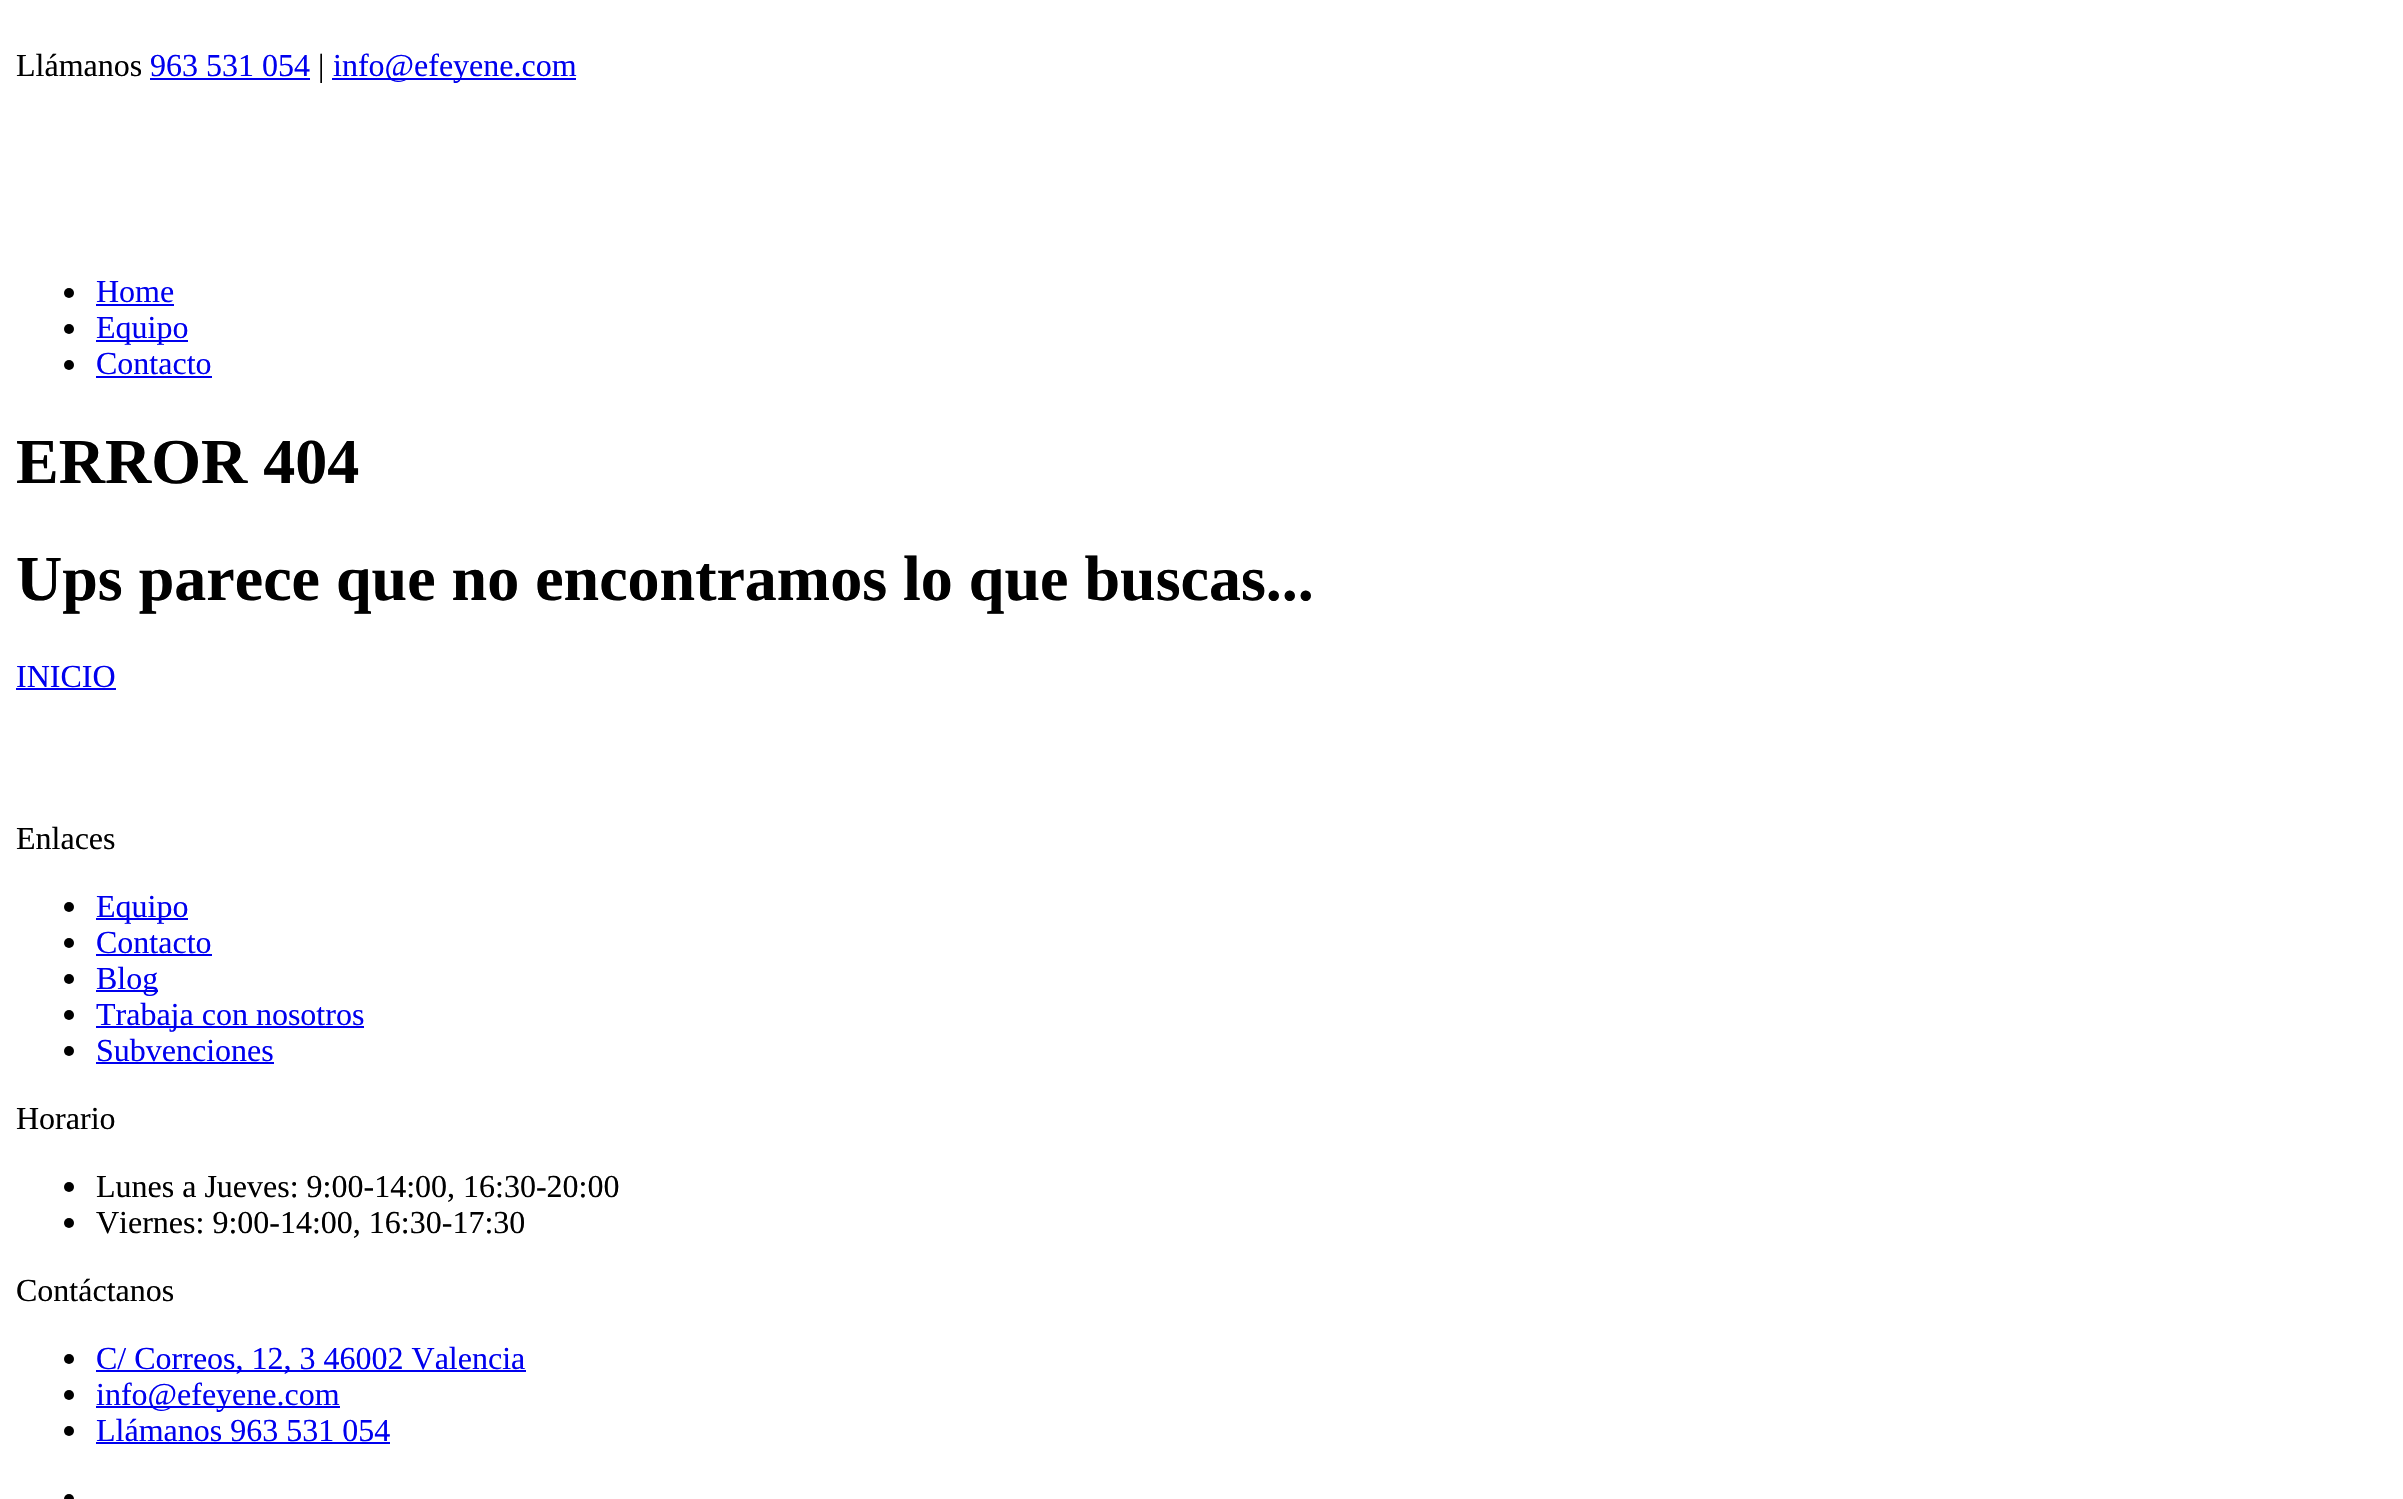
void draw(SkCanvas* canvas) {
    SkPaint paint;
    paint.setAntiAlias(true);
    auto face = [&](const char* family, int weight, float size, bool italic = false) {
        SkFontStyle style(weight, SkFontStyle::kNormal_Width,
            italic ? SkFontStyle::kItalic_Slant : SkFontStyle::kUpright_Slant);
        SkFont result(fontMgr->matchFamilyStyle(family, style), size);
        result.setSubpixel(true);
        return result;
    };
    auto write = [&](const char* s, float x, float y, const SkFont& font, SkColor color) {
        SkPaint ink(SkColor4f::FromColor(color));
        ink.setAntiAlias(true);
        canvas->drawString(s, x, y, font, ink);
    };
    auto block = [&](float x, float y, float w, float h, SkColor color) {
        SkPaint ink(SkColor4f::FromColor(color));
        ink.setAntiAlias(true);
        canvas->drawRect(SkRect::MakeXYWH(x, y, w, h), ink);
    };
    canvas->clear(SK_ColorWHITE);
    auto kFont1 = face("Liberation Serif", 400, 32);
    write("Llámanos", 16, 76, kFont1, SK_ColorBLACK);
    write("963 531 054", 150, 76, kFont1, SkColorSetRGB(0, 0, 238));
    block(150, 78, 160, 2, SkColorSetRGB(0, 0, 238));
    write("|", 318, 76, kFont1, SK_ColorBLACK);
    block(332, 78, 244, 2, SkColorSetRGB(0, 0, 238));
    write("info@efeyene.com", 333, 76, kFont1, SkColorSetRGB(0, 0, 238));
    paint.setColor(SK_ColorBLACK);
    canvas->drawCircle(69, 293, 5, paint);
    write("Home", 96, 302, kFont1, SkColorSetRGB(0, 0, 238));
    block(96, 304, 78, 2, SkColorSetRGB(0, 0, 238));
    canvas->drawCircle(69, 329, 5, paint);
    block(96, 340, 92, 2, SkColorSetRGB(0, 0, 238));
    write("Equipo", 96, 338, kFont1, SkColorSetRGB(0, 0, 238));
    canvas->drawCircle(69, 365, 5, paint);
    write("Contacto", 96, 374, kFont1, SkColorSetRGB(0, 0, 238));
    block(96, 376, 116, 2, SkColorSetRGB(0, 0, 238));
    auto kFont2 = face("Liberation Serif", 700, 64);
    write("ERROR 404", 16, 483, kFont2, SK_ColorBLACK);
    write("Ups parece que no encontramos lo que buscas...", 16, 600, kFont2, SK_ColorBLACK);
    write("INICIO", 16, 687, kFont1, SkColorSetRGB(0, 0, 238));
    block(16, 688, 100, 2, SkColorSetRGB(0, 0, 238));
    write("Enlaces", 16, 849, kFont1, SK_ColorBLACK);
    canvas->drawCircle(69, 907, 5, paint);
    block(96, 918, 92, 2, SkColorSetRGB(0, 0, 238));
    write("Equipo", 96, 917, kFont1, SkColorSetRGB(0, 0, 238));
    canvas->drawCircle(69, 943, 5, paint);
    write("Contacto", 96, 953, kFont1, SkColorSetRGB(0, 0, 238));
    block(96, 954, 116, 2, SkColorSetRGB(0, 0, 238));
    canvas->drawCircle(69, 979, 5, paint);
    block(96, 990, 62, 2, SkColorSetRGB(0, 0, 238));
    write("Blog", 96, 989, kFont1, SkColorSetRGB(0, 0, 238));
    canvas->drawCircle(69, 1015, 5, paint);
    block(96, 1026, 268, 2, SkColorSetRGB(0, 0, 238));
    write("Trabaja con nosotros", 96, 1025, kFont1, SkColorSetRGB(0, 0, 238));
    canvas->drawCircle(69, 1051, 5, paint);
    write("Subvenciones", 96, 1061, kFont1, SkColorSetRGB(0, 0, 238));
    block(96, 1062, 178, 2, SkColorSetRGB(0, 0, 238));
    write("Horario", 16, 1129, kFont1, SK_ColorBLACK);
    canvas->drawCircle(69, 1187, 5, paint);
    write("Lunes a Jueves: 9:00-14:00, 16:30-20:00", 96, 1197, kFont1, SK_ColorBLACK);
    canvas->drawCircle(69, 1223, 5, paint);
    write("Viernes: 9:00-14:00, 16:30-17:30", 96, 1233, kFont1, SK_ColorBLACK);
    write("Contáctanos", 16, 1301, kFont1, SK_ColorBLACK);
    canvas->drawCircle(69, 1359, 5, paint);
    block(96, 1370, 430, 2, SkColorSetRGB(0, 0, 238));
    write("C/ Correos, 12, 3 46002 Valencia", 96, 1369, kFont1, SkColorSetRGB(0, 0, 238));
    canvas->drawCircle(69, 1395, 5, paint);
    block(96, 1406, 244, 2, SkColorSetRGB(0, 0, 238));
    write("info@efeyene.com", 96, 1405, kFont1, SkColorSetRGB(0, 0, 238));
    canvas->drawCircle(69, 1431, 5, paint);
    write("Llámanos 963 531 054", 96, 1441, kFont1, SkColorSetRGB(0, 0, 238));
    block(96, 1442, 294, 2, SkColorSetRGB(0, 0, 238));
    canvas->drawCircle(69, 1499, 5, paint);
}
